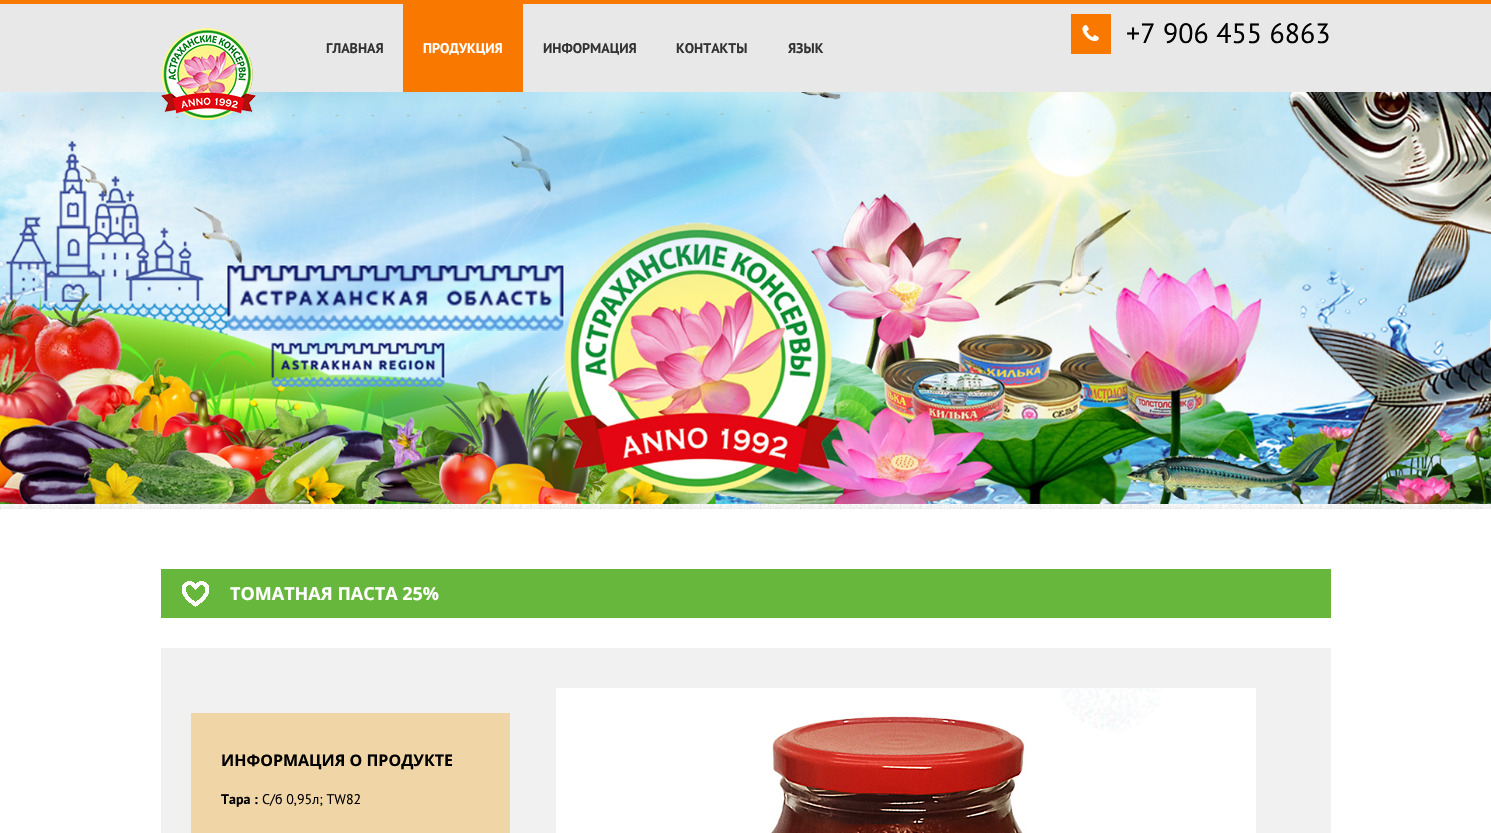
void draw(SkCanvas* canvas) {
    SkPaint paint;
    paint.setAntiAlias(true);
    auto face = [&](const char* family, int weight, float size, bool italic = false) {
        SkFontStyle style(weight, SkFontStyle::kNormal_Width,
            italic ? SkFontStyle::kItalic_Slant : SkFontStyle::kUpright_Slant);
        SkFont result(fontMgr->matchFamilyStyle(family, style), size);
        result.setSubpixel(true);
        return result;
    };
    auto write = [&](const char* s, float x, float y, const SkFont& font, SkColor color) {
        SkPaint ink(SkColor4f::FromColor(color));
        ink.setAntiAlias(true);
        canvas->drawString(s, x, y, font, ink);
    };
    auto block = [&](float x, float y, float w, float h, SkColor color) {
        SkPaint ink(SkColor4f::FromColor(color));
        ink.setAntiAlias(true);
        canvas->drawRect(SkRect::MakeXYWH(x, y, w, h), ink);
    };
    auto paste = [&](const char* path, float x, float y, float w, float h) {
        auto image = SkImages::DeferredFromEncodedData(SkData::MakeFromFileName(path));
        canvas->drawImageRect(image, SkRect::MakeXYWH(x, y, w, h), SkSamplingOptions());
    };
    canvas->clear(SK_ColorWHITE);
    block(0, 4, 1491, 88, SkColorSetRGB(232, 232, 232));
    block(0, 0, 1491, 4, SkColorSetRGB(249, 120, 0));
    paste("pic6.png", 0, 504, 1491, 5);
    paint.setColor(SkColorSetARGB(77, 50, 50, 50));
    paint.setMaskFilter(SkMaskFilter::MakeBlur(kNormal_SkBlurStyle, 3.5f));
    canvas->drawRect(SkRect::MakeXYWH(0, 512, 1491, 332), paint);
    paint.setMaskFilter(nullptr);
    paste("pic3.png", 0, 92, 1491, 412);
    paste("pic1.png", 161, 28, 95, 92);
    auto kFont1 = face("PT Sans", 700, 14);
    write("ГЛАВНАЯ", 326, 53, kFont1, SkColorSetRGB(51, 51, 51));
    block(403, 4, 120, 88, SkColorSetRGB(249, 120, 0));
    write("ПРОДУКЦИЯ", 423, 53, kFont1, SK_ColorWHITE);
    write("ИНФОРМАЦИЯ", 543, 53, kFont1, SkColorSetRGB(51, 51, 51));
    write("КОНТАКТЫ", 676, 53, kFont1, SkColorSetRGB(51, 51, 51));
    write("ЯЗЫК", 788, 53, kFont1, SkColorSetRGB(51, 51, 51));
    paste("pic2.png", 1071, 14, 40, 40);
    auto kFont2 = face("PT Sans", 400, 28);
    write("+7 906 455 6863", 1126, 43, kFont2, SK_ColorBLACK);
    block(0, 509, 1491, 324, SK_ColorWHITE);
    block(161, 569, 1170, 49, SkColorSetRGB(103, 183, 60));
    paste("pic4.png", 182, 581, 27, 26);
    auto kFont3 = face("Open Sans", 700, 18);
    write("ТОМАТНАЯ ПАСТА 25%", 230, 600, kFont3, SK_ColorWHITE);
    block(161, 648, 1170, 185, SkColorSetRGB(241, 241, 241));
    block(191, 713, 319, 120, SkColorSetRGB(240, 213, 166));
    auto kFont4 = face("Open Sans", 700, 16);
    write("ИНФОРМАЦИЯ О ПРОДУКТЕ", 221, 766, kFont4, SK_ColorBLACK);
    write("Тара :", 221, 804, kFont1, SK_ColorBLACK);
    auto kFont5 = face("PT Sans", 400, 14);
    write("С/б 0,95л; TW82", 262, 804, kFont5, SK_ColorBLACK);
    paste("pic5.png", 556, 688, 700, 145);
}
